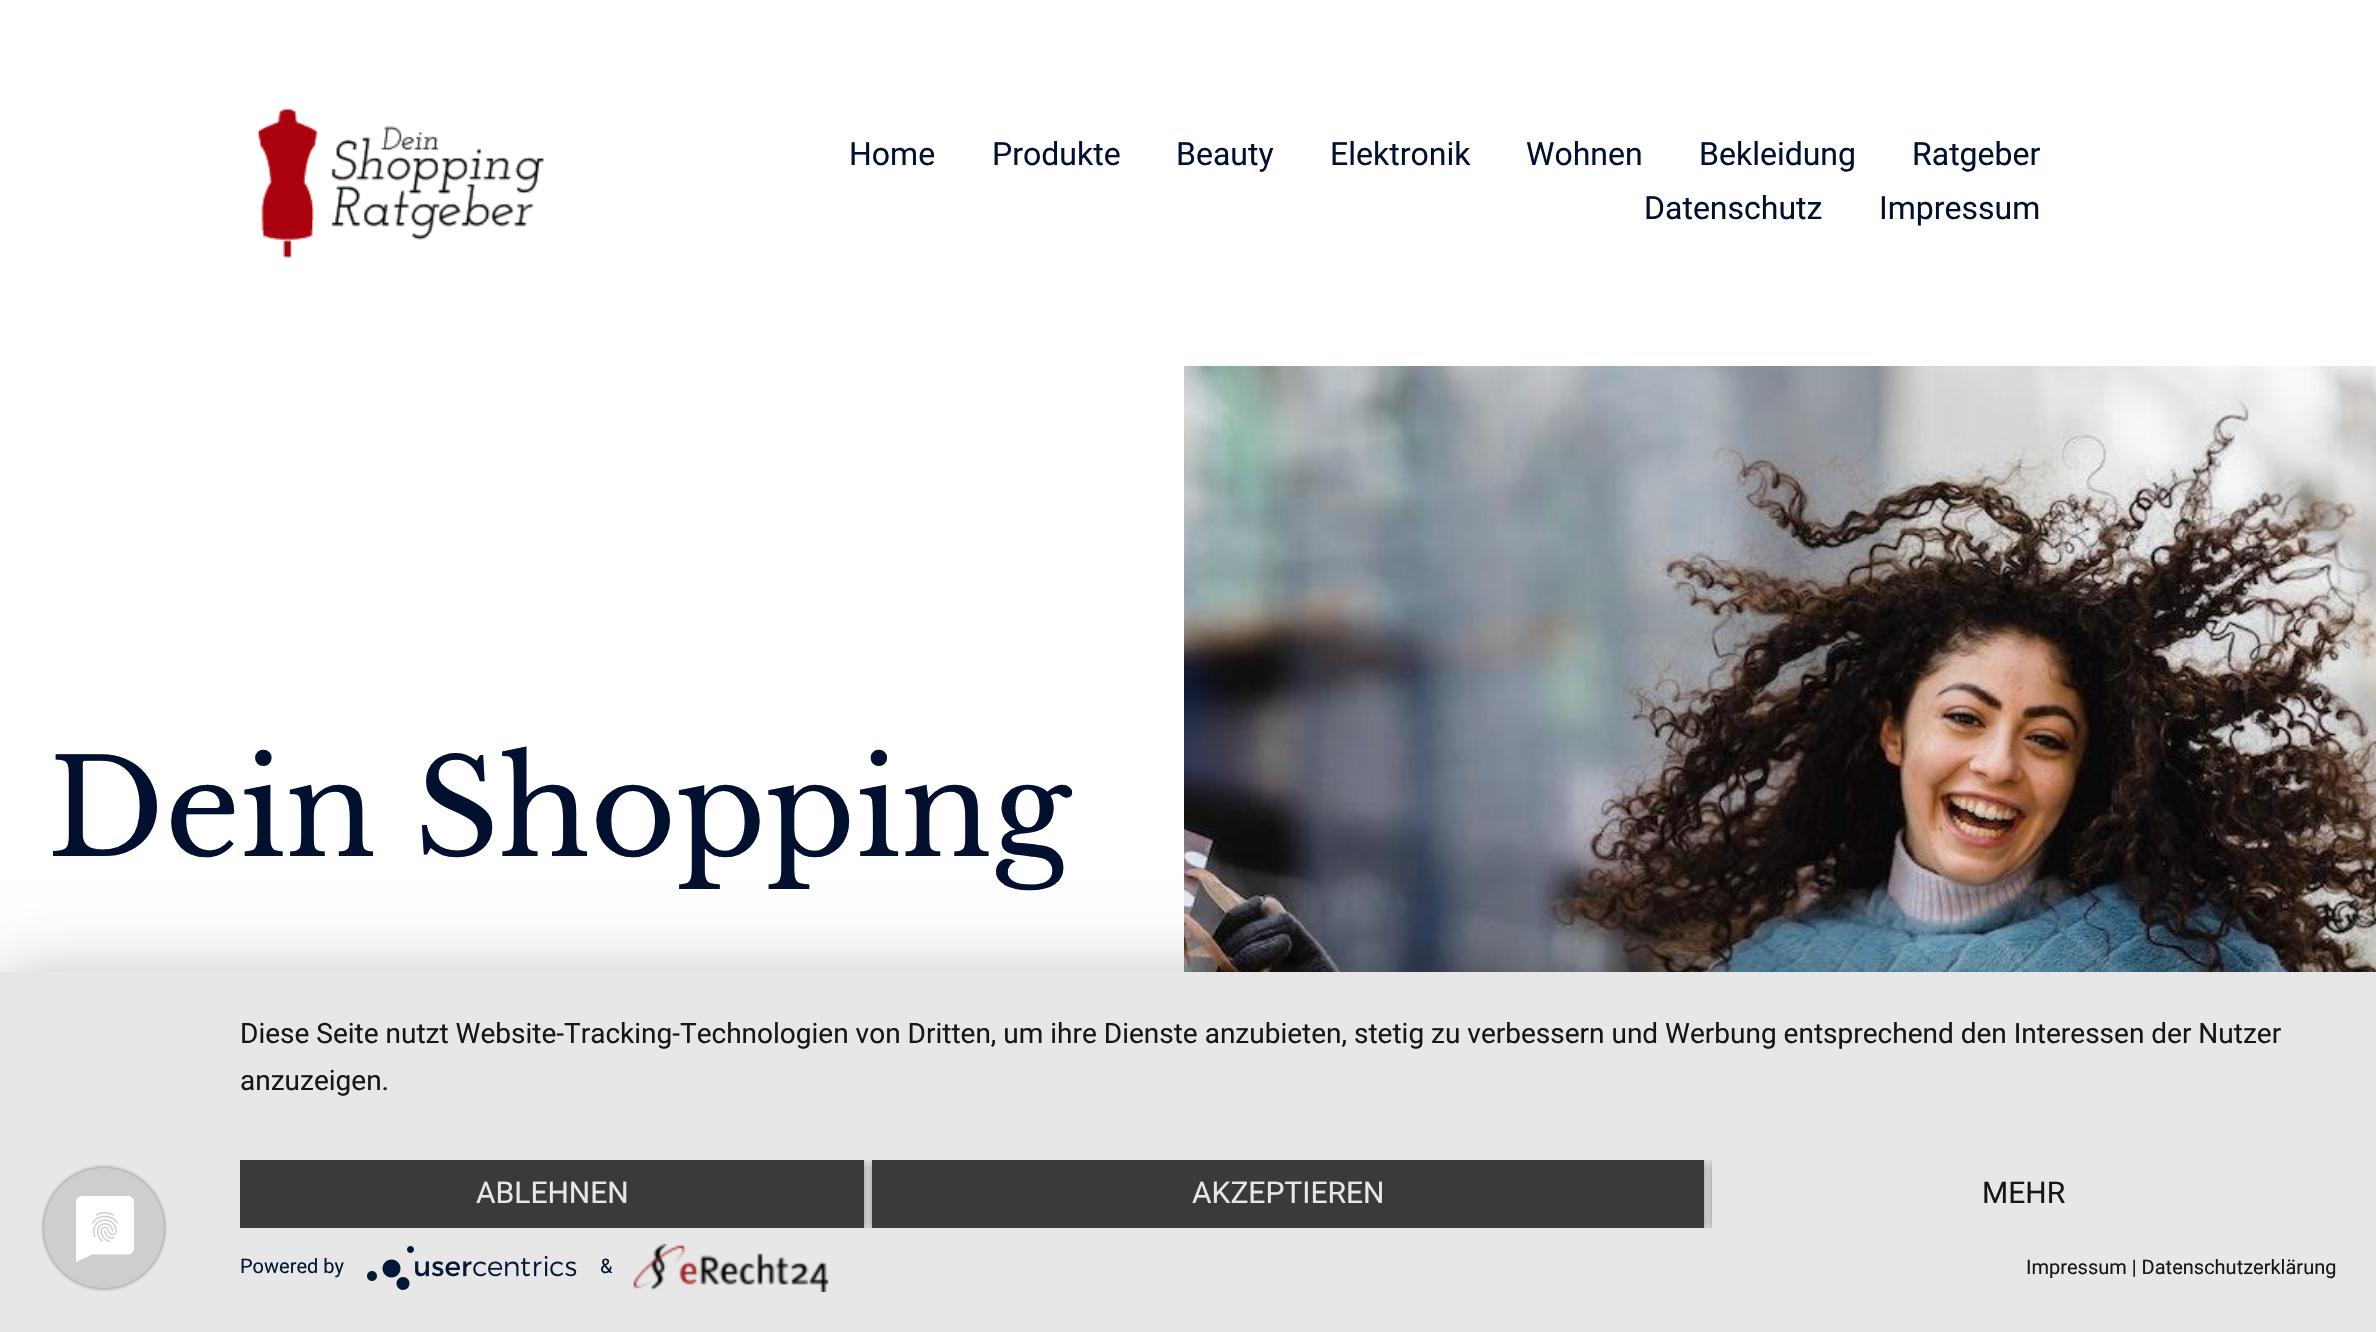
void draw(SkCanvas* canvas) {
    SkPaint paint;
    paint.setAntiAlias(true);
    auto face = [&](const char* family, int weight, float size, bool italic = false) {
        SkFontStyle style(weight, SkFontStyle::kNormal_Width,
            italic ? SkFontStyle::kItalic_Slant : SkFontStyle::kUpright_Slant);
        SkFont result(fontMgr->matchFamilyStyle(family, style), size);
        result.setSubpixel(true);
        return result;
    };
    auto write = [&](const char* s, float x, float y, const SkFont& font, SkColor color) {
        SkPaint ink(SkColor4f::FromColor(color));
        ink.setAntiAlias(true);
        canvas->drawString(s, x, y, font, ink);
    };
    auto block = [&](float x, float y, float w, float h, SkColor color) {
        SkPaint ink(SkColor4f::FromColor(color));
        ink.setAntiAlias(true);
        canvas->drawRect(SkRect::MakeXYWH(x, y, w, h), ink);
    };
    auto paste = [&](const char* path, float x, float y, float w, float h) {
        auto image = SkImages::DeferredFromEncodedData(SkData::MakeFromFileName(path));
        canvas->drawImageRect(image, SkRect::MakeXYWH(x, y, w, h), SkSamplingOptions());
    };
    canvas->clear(SK_ColorWHITE);
    paste("pic1.png", 257, 108, 288, 151);
    auto kFont1 = face("Roboto", 400, 32);
    write("Home", 849, 165, kFont1, SkColorSetRGB(0, 16, 46));
    write("Produkte", 992, 165, kFont1, SkColorSetRGB(0, 16, 46));
    write("Beauty", 1176, 165, kFont1, SkColorSetRGB(0, 16, 46));
    write("Elektronik", 1330, 165, kFont1, SkColorSetRGB(0, 16, 46));
    write("Wohnen", 1526, 165, kFont1, SkColorSetRGB(0, 16, 46));
    write("Bekleidung", 1699, 165, kFont1, SkColorSetRGB(0, 16, 46));
    write("Ratgeber", 1912, 165, kFont1, SkColorSetRGB(0, 16, 46));
    write("Datenschutz", 1644, 219, kFont1, SkColorSetRGB(0, 16, 46));
    write("Impressum", 1879, 219, kFont1, SkColorSetRGB(0, 16, 46));
    auto kFont2 = face("Libre Baskerville", 400, 132);
    write("Dein Shopping", 48, 856, kFont2, SkColorSetRGB(0, 16, 46));
    paste("pic2.png", 1184, 366, 1192, 606);
    paint.setColor(SkColorSetARGB(77, 0, 0, 0));
    paint.setMaskFilter(SkMaskFilter::MakeBlur(kNormal_SkBlurStyle, 36));
    canvas->drawRect(SkRect::MakeXYWH(0, 984, 2376, 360), paint);
    paint.setMaskFilter(nullptr);
    block(0, 972, 2376, 360, SkColorSetRGB(231, 231, 231));
    paste("pic3.png", 41, 1164, 126, 128);
    auto kFont3 = face("Roboto", 400, 28);
    write("Diese Seite nutzt Website-Tracking-Technologien von Dritten, um ihre Dienste anzubieten, stetig zu verbessern und Werbung entsprechend den Interessen der Nutzer", 240, 1043, kFont3, SkColorSetRGB(22, 22, 22));
    write("anzuzeigen.", 240, 1090, kFont3, SkColorSetRGB(22, 22, 22));
    canvas->save();
    canvas->clipRect(SkRect::MakeXYWH(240, 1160, 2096, 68));
    paint.setColor(SkColorSetARGB(102, 0, 0, 0));
    paint.setMaskFilter(SkMaskFilter::MakeBlur(kNormal_SkBlurStyle, 4));
    canvas->drawRect(SkRect::MakeXYWH(240, 1162, 624, 68), paint);
    paint.setMaskFilter(nullptr);
    canvas->restore();
    block(240, 1160, 624, 68, SkColorSetRGB(58, 58, 58));
    auto kFont4 = face("Roboto", 400, 30);
    write("ABLEHNEN", 476, 1203, kFont4, SkColorSetRGB(231, 231, 231));
    canvas->save();
    canvas->clipRect(SkRect::MakeXYWH(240, 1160, 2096, 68));
    paint.setMaskFilter(SkMaskFilter::MakeBlur(kNormal_SkBlurStyle, 4));
    canvas->drawRect(SkRect::MakeXYWH(872, 1162, 832, 68), paint);
    paint.setMaskFilter(nullptr);
    canvas->restore();
    block(872, 1160, 832, 68, SkColorSetRGB(58, 58, 58));
    write("AKZEPTIEREN", 1192, 1203, kFont4, SkColorSetRGB(231, 231, 231));
    canvas->save();
    canvas->clipRect(SkRect::MakeXYWH(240, 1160, 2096, 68));
    canvas->clipRect(SkRect::MakeXYWH(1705, 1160, 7, 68));
    paint.setMaskFilter(SkMaskFilter::MakeBlur(kNormal_SkBlurStyle, 4));
    canvas->drawRect(SkRect::MakeXYWH(1712, 1162, 624, 68), paint);
    paint.setMaskFilter(nullptr);
    canvas->restore();
    write("MEHR", 1982, 1203, kFont4, SkColorSetRGB(22, 22, 22));
    auto kFont5 = face("Roboto", 400, 20);
    write("Powered by", 240, 1273, kFont5, SkColorSetRGB(2, 24, 54));
    paste("pic4.png", 367, 1246, 210, 44);
    write("&", 600, 1273, kFont5, SkColorSetRGB(2, 24, 54));
    paste("pic5.png", 633, 1244, 196, 48);
    write("Impressum | Datenschutzerklärung", 2026, 1274, kFont5, SkColorSetRGB(22, 22, 22));
}
